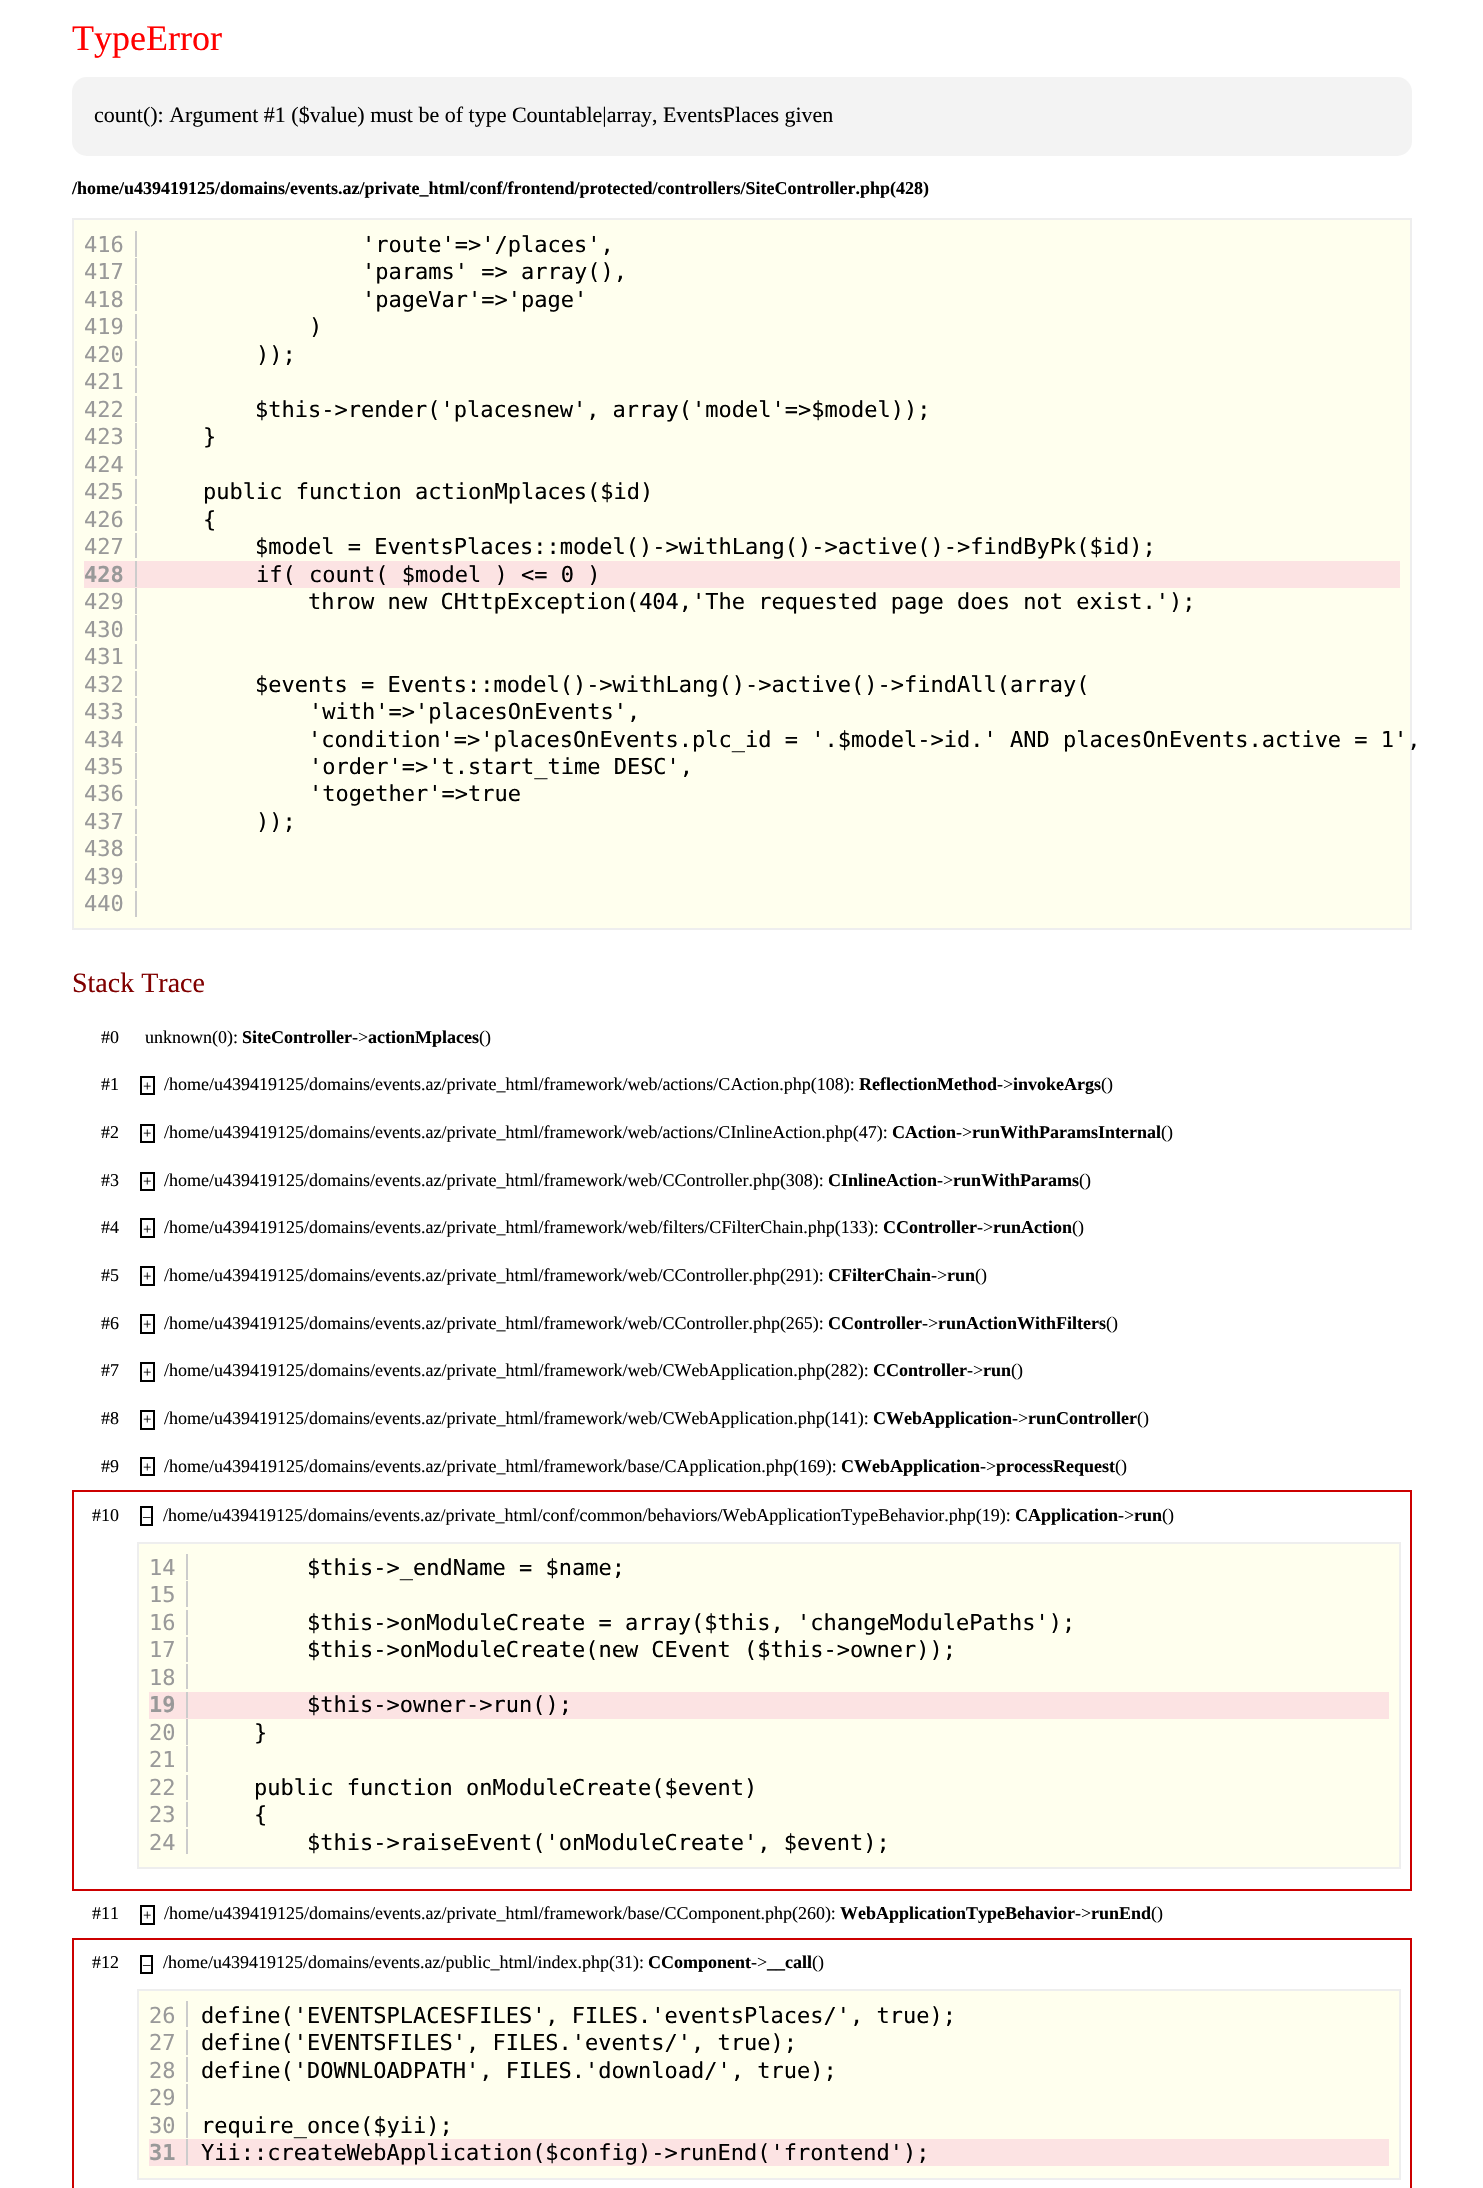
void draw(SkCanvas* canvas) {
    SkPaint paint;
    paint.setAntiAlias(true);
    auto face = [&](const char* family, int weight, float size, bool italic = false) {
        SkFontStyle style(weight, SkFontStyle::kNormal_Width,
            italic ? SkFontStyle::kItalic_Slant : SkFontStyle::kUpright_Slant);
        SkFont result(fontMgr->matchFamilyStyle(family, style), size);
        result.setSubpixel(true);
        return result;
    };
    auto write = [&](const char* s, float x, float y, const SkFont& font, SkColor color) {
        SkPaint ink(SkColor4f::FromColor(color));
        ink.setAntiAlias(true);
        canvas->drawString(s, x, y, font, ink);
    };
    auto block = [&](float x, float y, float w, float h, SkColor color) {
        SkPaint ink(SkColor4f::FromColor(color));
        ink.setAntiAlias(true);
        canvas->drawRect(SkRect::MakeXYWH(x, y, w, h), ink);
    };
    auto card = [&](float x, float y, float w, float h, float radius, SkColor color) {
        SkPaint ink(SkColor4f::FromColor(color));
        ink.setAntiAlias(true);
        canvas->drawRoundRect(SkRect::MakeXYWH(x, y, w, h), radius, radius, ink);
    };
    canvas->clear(SK_ColorWHITE);
    auto kFont1 = face("Liberation Serif", 400, 36);
    write("TypeError", 72, 50, kFont1, SkColorSetRGB(255, 0, 0));
    card(72, 77, 1340, 79, 15, SkColorSetRGB(243, 243, 243));
    auto kFont2 = face("Liberation Serif", 400, 22);
    write("count(): Argument #1 ($value) must be of type Countable|array, EventsPlaces given", 94, 122, kFont2, SK_ColorBLACK);
    auto kFont3 = face("Liberation Serif", 700, 18);
    write("/home/u439419125/domains/events.az/private_html/conf/frontend/protected/controllers/SiteController.php(428)", 72, 194, kFont3, SK_ColorBLACK);
    paint.setColor(SkColorSetRGB(255, 255, 238));
    canvas->drawRect(SkRect::MakeXYWH(73, 219, 1338, 710), paint);
    paint.setStyle(SkPaint::kStroke_Style);
    paint.setStrokeWidth(2);
    paint.setColor(SkColorSetRGB(238, 238, 238));
    canvas->drawRect(SkRect::MakeXYWH(73, 219, 1338, 710), paint);
    auto kFont4 = face("DejaVu Sans Mono", 400, 22);
    write("416", 84, 252, kFont4, SkColorSetRGB(153, 153, 153));
    block(135, 231, 2, 26, SkColorSetRGB(204, 204, 204));
    write("'route'=>'/places',", 362, 252, kFont4, SK_ColorBLACK);
    write("417", 84, 279, kFont4, SkColorSetRGB(153, 153, 153));
    block(135, 258, 2, 26, SkColorSetRGB(204, 204, 204));
    write("'params' => array(),", 362, 279, kFont4, SK_ColorBLACK);
    write("418", 84, 307, kFont4, SkColorSetRGB(153, 153, 153));
    block(135, 285, 2, 26, SkColorSetRGB(204, 204, 204));
    write("'pageVar'=>'page'", 362, 307, kFont4, SK_ColorBLACK);
    write("419", 84, 334, kFont4, SkColorSetRGB(153, 153, 153));
    block(135, 314, 2, 25, SkColorSetRGB(204, 204, 204));
    write(")", 309, 334, kFont4, SK_ColorBLACK);
    write("420", 84, 362, kFont4, SkColorSetRGB(153, 153, 153));
    block(135, 341, 2, 25, SkColorSetRGB(204, 204, 204));
    write("));", 256, 362, kFont4, SK_ColorBLACK);
    write("421", 84, 389, kFont4, SkColorSetRGB(153, 153, 153));
    block(135, 368, 2, 25, SkColorSetRGB(204, 204, 204));
    write("422", 84, 417, kFont4, SkColorSetRGB(153, 153, 153));
    block(135, 396, 2, 26, SkColorSetRGB(204, 204, 204));
    write("$this->render('placesnew', array('model'=>$model));", 255, 417, kFont4, SK_ColorBLACK);
    write("423", 84, 444, kFont4, SkColorSetRGB(153, 153, 153));
    block(135, 423, 2, 26, SkColorSetRGB(204, 204, 204));
    write("}", 203, 444, kFont4, SK_ColorBLACK);
    write("424", 84, 472, kFont4, SkColorSetRGB(153, 153, 153));
    block(135, 450, 2, 26, SkColorSetRGB(204, 204, 204));
    write("425", 84, 499, kFont4, SkColorSetRGB(153, 153, 153));
    block(135, 479, 2, 25, SkColorSetRGB(204, 204, 204));
    write("public function actionMplaces($id)", 203, 499, kFont4, SK_ColorBLACK);
    write("426", 84, 527, kFont4, SkColorSetRGB(153, 153, 153));
    block(135, 506, 2, 25, SkColorSetRGB(204, 204, 204));
    write("{", 203, 527, kFont4, SK_ColorBLACK);
    write("427", 84, 554, kFont4, SkColorSetRGB(153, 153, 153));
    block(135, 533, 2, 25, SkColorSetRGB(204, 204, 204));
    write("$model = EventsPlaces::model()->withLang()->active()->findByPk($id);", 255, 554, kFont4, SK_ColorBLACK);
    block(84, 561, 1316, 27, SkColorSetRGB(252, 227, 227));
    auto kFont5 = face("DejaVu Sans Mono", 700, 22);
    write("428", 84, 582, kFont5, SkColorSetRGB(153, 153, 153));
    block(135, 561, 2, 26, SkColorSetRGB(204, 204, 204));
    write("if( count( $model ) <= 0 )", 256, 582, kFont4, SK_ColorBLACK);
    write("429", 84, 609, kFont4, SkColorSetRGB(153, 153, 153));
    block(135, 588, 2, 26, SkColorSetRGB(204, 204, 204));
    write("throw new CHttpException(404,'The requested page does not exist.');", 308, 609, kFont4, SK_ColorBLACK);
    write("430", 84, 637, kFont4, SkColorSetRGB(153, 153, 153));
    block(135, 615, 2, 26, SkColorSetRGB(204, 204, 204));
    write("431", 84, 664, kFont4, SkColorSetRGB(153, 153, 153));
    block(135, 644, 2, 25, SkColorSetRGB(204, 204, 204));
    write("432", 84, 692, kFont4, SkColorSetRGB(153, 153, 153));
    block(135, 671, 2, 25, SkColorSetRGB(204, 204, 204));
    write("$events = Events::model()->withLang()->active()->findAll(array(", 255, 692, kFont4, SK_ColorBLACK);
    write("433", 84, 719, kFont4, SkColorSetRGB(153, 153, 153));
    block(135, 698, 2, 25, SkColorSetRGB(204, 204, 204));
    write("'with'=>'placesOnEvents',", 309, 719, kFont4, SK_ColorBLACK);
    write("434", 84, 747, kFont4, SkColorSetRGB(153, 153, 153));
    block(135, 726, 2, 26, SkColorSetRGB(204, 204, 204));
    write("'condition'=>'placesOnEvents.plc_id = '.$model->id.' AND placesOnEvents.active = 1',", 308, 747, kFont4, SK_ColorBLACK);
    write("435", 84, 774, kFont4, SkColorSetRGB(153, 153, 153));
    block(135, 753, 2, 26, SkColorSetRGB(204, 204, 204));
    write("'order'=>'t.start_time DESC',", 309, 774, kFont4, SK_ColorBLACK);
    write("436", 84, 801, kFont4, SkColorSetRGB(153, 153, 153));
    block(135, 780, 2, 26, SkColorSetRGB(204, 204, 204));
    write("'together'=>true", 309, 801, kFont4, SK_ColorBLACK);
    write("437", 84, 829, kFont4, SkColorSetRGB(153, 153, 153));
    block(135, 809, 2, 25, SkColorSetRGB(204, 204, 204));
    write("));", 256, 829, kFont4, SK_ColorBLACK);
    write("438", 84, 856, kFont4, SkColorSetRGB(153, 153, 153));
    block(135, 836, 2, 25, SkColorSetRGB(204, 204, 204));
    write("439", 84, 884, kFont4, SkColorSetRGB(153, 153, 153));
    block(135, 863, 2, 25, SkColorSetRGB(204, 204, 204));
    write("440", 84, 911, kFont4, SkColorSetRGB(153, 153, 153));
    block(135, 891, 2, 26, SkColorSetRGB(204, 204, 204));
    auto kFont6 = face("Liberation Serif", 400, 28);
    write("Stack Trace", 72, 992, kFont6, SkColorSetRGB(128, 0, 0));
    auto kFont7 = face("Liberation Serif", 400, 18);
    write("#0", 101, 1043, kFont7, SK_ColorBLACK);
    write("unknown(0):", 145, 1043, kFont7, SK_ColorBLACK);
    write("SiteController", 242, 1043, kFont3, SK_ColorBLACK);
    write("->", 352, 1043, kFont7, SK_ColorBLACK);
    write("actionMplaces", 368, 1043, kFont3, SK_ColorBLACK);
    write("()", 479, 1043, kFont7, SK_ColorBLACK);
    write("#1", 101, 1090, kFont7, SK_ColorBLACK);
    paint.setColor(SK_ColorBLACK);
    canvas->drawRect(SkRect::MakeXYWH(141, 1077, 13, 17), paint);
    auto kFont8 = face("Liberation Serif", 400, 15);
    write("+", 143, 1091, kFont8, SK_ColorBLACK);
    write("/home/u439419125/domains/events.az/private_html/framework/web/actions/CAction.php(108):", 164, 1090, kFont7, SK_ColorBLACK);
    write("ReflectionMethod", 859, 1090, kFont3, SK_ColorBLACK);
    write("->", 997, 1090, kFont7, SK_ColorBLACK);
    write("invokeArgs", 1013, 1090, kFont3, SK_ColorBLACK);
    write("()", 1101, 1090, kFont7, SK_ColorBLACK);
    write("#2", 101, 1138, kFont7, SK_ColorBLACK);
    canvas->drawRect(SkRect::MakeXYWH(141, 1125, 13, 17), paint);
    write("+", 143, 1138, kFont8, SK_ColorBLACK);
    write("/home/u439419125/domains/events.az/private_html/framework/web/actions/CInlineAction.php(47):", 164, 1138, kFont7, SK_ColorBLACK);
    write("CAction", 892, 1138, kFont3, SK_ColorBLACK);
    write("->", 956, 1138, kFont7, SK_ColorBLACK);
    write("runWithParamsInternal", 972, 1138, kFont3, SK_ColorBLACK);
    write("()", 1161, 1138, kFont7, SK_ColorBLACK);
    write("#3", 101, 1186, kFont7, SK_ColorBLACK);
    canvas->drawRect(SkRect::MakeXYWH(141, 1173, 13, 17), paint);
    write("+", 143, 1186, kFont8, SK_ColorBLACK);
    write("/home/u439419125/domains/events.az/private_html/framework/web/CController.php(308):", 164, 1186, kFont7, SK_ColorBLACK);
    write("CInlineAction", 828, 1186, kFont3, SK_ColorBLACK);
    write("->", 937, 1186, kFont7, SK_ColorBLACK);
    write("runWithParams", 953, 1186, kFont3, SK_ColorBLACK);
    write("()", 1079, 1186, kFont7, SK_ColorBLACK);
    write("#4", 101, 1233, kFont7, SK_ColorBLACK);
    canvas->drawRect(SkRect::MakeXYWH(141, 1219, 13, 18), paint);
    write("+", 143, 1234, kFont8, SK_ColorBLACK);
    write("/home/u439419125/domains/events.az/private_html/framework/web/filters/CFilterChain.php(133):", 164, 1233, kFont7, SK_ColorBLACK);
    write("CController", 883, 1233, kFont3, SK_ColorBLACK);
    write("->", 977, 1233, kFont7, SK_ColorBLACK);
    write("runAction", 993, 1233, kFont3, SK_ColorBLACK);
    write("()", 1072, 1233, kFont7, SK_ColorBLACK);
    write("#5", 101, 1281, kFont7, SK_ColorBLACK);
    canvas->drawRect(SkRect::MakeXYWH(141, 1267, 13, 18), paint);
    write("+", 143, 1281, kFont8, SK_ColorBLACK);
    write("/home/u439419125/domains/events.az/private_html/framework/web/CController.php(291):", 164, 1281, kFont7, SK_ColorBLACK);
    write("CFilterChain", 828, 1281, kFont3, SK_ColorBLACK);
    write("->", 931, 1281, kFont7, SK_ColorBLACK);
    write("run", 947, 1281, kFont3, SK_ColorBLACK);
    write("()", 975, 1281, kFont7, SK_ColorBLACK);
    write("#6", 101, 1329, kFont7, SK_ColorBLACK);
    canvas->drawRect(SkRect::MakeXYWH(141, 1315, 13, 18), paint);
    write("+", 143, 1329, kFont8, SK_ColorBLACK);
    write("/home/u439419125/domains/events.az/private_html/framework/web/CController.php(265):", 164, 1329, kFont7, SK_ColorBLACK);
    write("CController", 828, 1329, kFont3, SK_ColorBLACK);
    write("->", 922, 1329, kFont7, SK_ColorBLACK);
    write("runActionWithFilters", 938, 1329, kFont3, SK_ColorBLACK);
    write("()", 1106, 1329, kFont7, SK_ColorBLACK);
    write("#7", 101, 1376, kFont7, SK_ColorBLACK);
    canvas->drawRect(SkRect::MakeXYWH(141, 1363, 13, 18), paint);
    write("+", 143, 1377, kFont8, SK_ColorBLACK);
    write("/home/u439419125/domains/events.az/private_html/framework/web/CWebApplication.php(282):", 164, 1376, kFont7, SK_ColorBLACK);
    write("CController", 873, 1376, kFont3, SK_ColorBLACK);
    write("->", 967, 1376, kFont7, SK_ColorBLACK);
    write("run", 983, 1376, kFont3, SK_ColorBLACK);
    write("()", 1011, 1376, kFont7, SK_ColorBLACK);
    write("#8", 101, 1424, kFont7, SK_ColorBLACK);
    canvas->drawRect(SkRect::MakeXYWH(141, 1411, 13, 18), paint);
    write("+", 143, 1424, kFont8, SK_ColorBLACK);
    write("/home/u439419125/domains/events.az/private_html/framework/web/CWebApplication.php(141):", 164, 1424, kFont7, SK_ColorBLACK);
    write("CWebApplication", 873, 1424, kFont3, SK_ColorBLACK);
    write("->", 1012, 1424, kFont7, SK_ColorBLACK);
    write("runController", 1028, 1424, kFont3, SK_ColorBLACK);
    write("()", 1137, 1424, kFont7, SK_ColorBLACK);
    write("#9", 101, 1472, kFont7, SK_ColorBLACK);
    canvas->drawRect(SkRect::MakeXYWH(141, 1458, 13, 17), paint);
    write("+", 143, 1472, kFont8, SK_ColorBLACK);
    write("/home/u439419125/domains/events.az/private_html/framework/base/CApplication.php(169):", 164, 1472, kFont7, SK_ColorBLACK);
    write("CWebApplication", 841, 1472, kFont3, SK_ColorBLACK);
    write("->", 980, 1472, kFont7, SK_ColorBLACK);
    write("processRequest", 996, 1472, kFont3, SK_ColorBLACK);
    write("()", 1115, 1472, kFont7, SK_ColorBLACK);
    block(72, 1490, 1340, 2, SkColorSetRGB(204, 0, 0));
    block(1410, 1490, 2, 400, SkColorSetRGB(204, 0, 0));
    block(72, 1889, 1340, 2, SkColorSetRGB(204, 0, 0));
    block(72, 1490, 2, 400, SkColorSetRGB(204, 0, 0));
    write("#10", 92, 1521, kFont7, SK_ColorBLACK);
    canvas->drawRect(SkRect::MakeXYWH(141, 1507, 11, 18), paint);
    write("–", 143, 1521, kFont8, SK_ColorBLACK);
    write("/home/u439419125/domains/events.az/private_html/conf/common/behaviors/WebApplicationTypeBehavior.php(19):", 163, 1521, kFont7, SK_ColorBLACK);
    write("CApplication", 1015, 1521, kFont3, SK_ColorBLACK);
    write("->", 1118, 1521, kFont7, SK_ColorBLACK);
    write("run", 1134, 1521, kFont3, SK_ColorBLACK);
    write("()", 1162, 1521, kFont7, SK_ColorBLACK);
    paint.setStyle(SkPaint::kFill_Style);
    paint.setColor(SkColorSetRGB(255, 255, 238));
    canvas->drawRect(SkRect::MakeXYWH(138, 1543, 1262, 325), paint);
    paint.setStyle(SkPaint::kStroke_Style);
    paint.setColor(SkColorSetRGB(238, 238, 238));
    canvas->drawRect(SkRect::MakeXYWH(138, 1543, 1262, 325), paint);
    write("14", 149, 1575, kFont4, SkColorSetRGB(153, 153, 153));
    block(186, 1554, 2, 26, SkColorSetRGB(204, 204, 204));
    write("$this->_endName = $name;", 307, 1575, kFont4, SK_ColorBLACK);
    write("15", 149, 1602, kFont4, SkColorSetRGB(153, 153, 153));
    block(186, 1581, 2, 26, SkColorSetRGB(204, 204, 204));
    write("16", 149, 1630, kFont4, SkColorSetRGB(153, 153, 153));
    block(186, 1610, 2, 25, SkColorSetRGB(204, 204, 204));
    write("$this->onModuleCreate = array($this, 'changeModulePaths');", 307, 1630, kFont4, SK_ColorBLACK);
    write("17", 149, 1657, kFont4, SkColorSetRGB(153, 153, 153));
    block(186, 1637, 2, 25, SkColorSetRGB(204, 204, 204));
    write("$this->onModuleCreate(new CEvent ($this->owner));", 307, 1657, kFont4, SK_ColorBLACK);
    write("18", 149, 1685, kFont4, SkColorSetRGB(153, 153, 153));
    block(186, 1664, 2, 25, SkColorSetRGB(204, 204, 204));
    block(149, 1692, 1240, 27, SkColorSetRGB(252, 227, 227));
    write("19", 149, 1712, kFont5, SkColorSetRGB(153, 153, 153));
    block(186, 1692, 2, 26, SkColorSetRGB(204, 204, 204));
    write("$this->owner->run();", 307, 1712, kFont4, SK_ColorBLACK);
    write("20", 149, 1740, kFont4, SkColorSetRGB(153, 153, 153));
    block(186, 1719, 2, 26, SkColorSetRGB(204, 204, 204));
    write("}", 254, 1740, kFont4, SK_ColorBLACK);
    write("21", 149, 1767, kFont4, SkColorSetRGB(153, 153, 153));
    block(186, 1746, 2, 26, SkColorSetRGB(204, 204, 204));
    write("22", 149, 1795, kFont4, SkColorSetRGB(153, 153, 153));
    block(186, 1775, 2, 25, SkColorSetRGB(204, 204, 204));
    write("public function onModuleCreate($event)", 254, 1795, kFont4, SK_ColorBLACK);
    write("23", 149, 1822, kFont4, SkColorSetRGB(153, 153, 153));
    block(186, 1802, 2, 25, SkColorSetRGB(204, 204, 204));
    write("{", 254, 1822, kFont4, SK_ColorBLACK);
    write("24", 149, 1850, kFont4, SkColorSetRGB(153, 153, 153));
    block(186, 1829, 2, 25, SkColorSetRGB(204, 204, 204));
    write("$this->raiseEvent('onModuleCreate', $event);", 307, 1850, kFont4, SK_ColorBLACK);
    write("#11", 92, 1919, kFont7, SK_ColorBLACK);
    paint.setColor(SK_ColorBLACK);
    canvas->drawRect(SkRect::MakeXYWH(141, 1906, 13, 18), paint);
    write("+", 143, 1920, kFont8, SK_ColorBLACK);
    write("/home/u439419125/domains/events.az/private_html/framework/base/CComponent.php(260):", 164, 1919, kFont7, SK_ColorBLACK);
    write("WebApplicationTypeBehavior", 840, 1919, kFont3, SK_ColorBLACK);
    write("->", 1075, 1919, kFont7, SK_ColorBLACK);
    write("runEnd", 1091, 1919, kFont3, SK_ColorBLACK);
    write("()", 1151, 1919, kFont7, SK_ColorBLACK);
    block(72, 1938, 1340, 2, SkColorSetRGB(204, 0, 0));
    block(1410, 1938, 2, 250, SkColorSetRGB(204, 0, 0));
    block(72, 1938, 2, 250, SkColorSetRGB(204, 0, 0));
    write("#12", 92, 1968, kFont7, SK_ColorBLACK);
    canvas->drawRect(SkRect::MakeXYWH(141, 1956, 11, 17), paint);
    write("–", 143, 1969, kFont8, SK_ColorBLACK);
    write("/home/u439419125/domains/events.az/public_html/index.php(31):", 163, 1968, kFont7, SK_ColorBLACK);
    write("CComponent", 648, 1968, kFont3, SK_ColorBLACK);
    write("->", 751, 1968, kFont7, SK_ColorBLACK);
    write("__call", 767, 1968, kFont3, SK_ColorBLACK);
    write("()", 812, 1968, kFont7, SK_ColorBLACK);
    paint.setStyle(SkPaint::kFill_Style);
    paint.setColor(SkColorSetRGB(255, 255, 238));
    canvas->drawRect(SkRect::MakeXYWH(138, 1990, 1262, 189), paint);
    paint.setStyle(SkPaint::kStroke_Style);
    paint.setColor(SkColorSetRGB(238, 238, 238));
    canvas->drawRect(SkRect::MakeXYWH(138, 1990, 1262, 189), paint);
    write("26", 149, 2023, kFont4, SkColorSetRGB(153, 153, 153));
    block(186, 2001, 2, 26, SkColorSetRGB(204, 204, 204));
    write("define('EVENTSPLACESFILES', FILES.'eventsPlaces/', true);", 201, 2023, kFont4, SK_ColorBLACK);
    write("27", 149, 2050, kFont4, SkColorSetRGB(153, 153, 153));
    block(186, 2030, 2, 25, SkColorSetRGB(204, 204, 204));
    write("define('EVENTSFILES', FILES.'events/', true);", 201, 2050, kFont4, SK_ColorBLACK);
    write("28", 149, 2078, kFont4, SkColorSetRGB(153, 153, 153));
    block(186, 2057, 2, 25, SkColorSetRGB(204, 204, 204));
    write("define('DOWNLOADPATH', FILES.'download/', true);", 201, 2078, kFont4, SK_ColorBLACK);
    write("29", 149, 2105, kFont4, SkColorSetRGB(153, 153, 153));
    block(186, 2084, 2, 25, SkColorSetRGB(204, 204, 204));
    write("30", 149, 2133, kFont4, SkColorSetRGB(153, 153, 153));
    block(186, 2112, 2, 26, SkColorSetRGB(204, 204, 204));
    write("require_once($yii);", 201, 2133, kFont4, SK_ColorBLACK);
    block(149, 2139, 1240, 27, SkColorSetRGB(252, 227, 227));
    write("31", 149, 2160, kFont5, SkColorSetRGB(153, 153, 153));
    block(186, 2139, 2, 26, SkColorSetRGB(204, 204, 204));
    write("Yii::createWebApplication($config)->runEnd('frontend');", 201, 2160, kFont4, SK_ColorBLACK);
}
